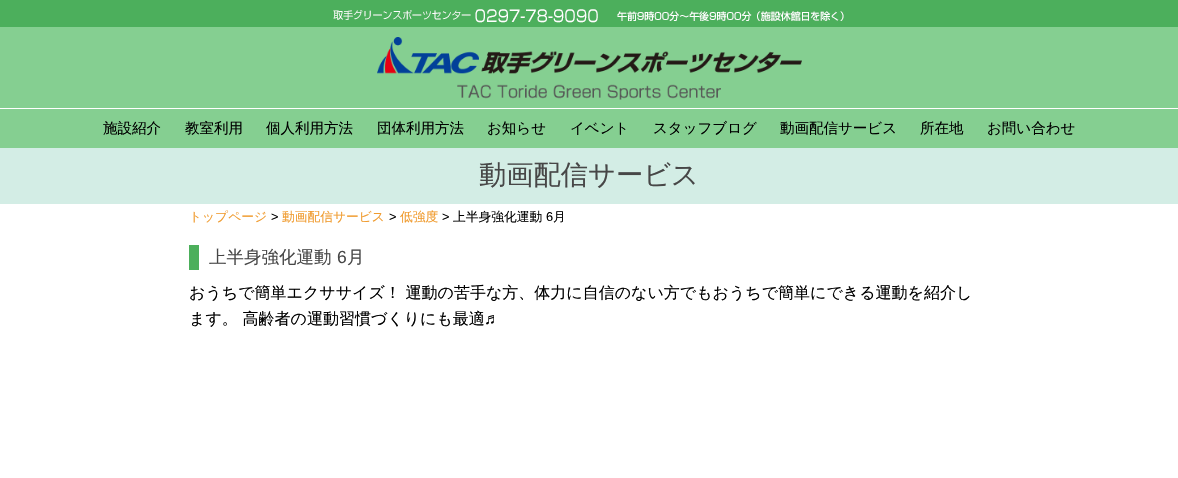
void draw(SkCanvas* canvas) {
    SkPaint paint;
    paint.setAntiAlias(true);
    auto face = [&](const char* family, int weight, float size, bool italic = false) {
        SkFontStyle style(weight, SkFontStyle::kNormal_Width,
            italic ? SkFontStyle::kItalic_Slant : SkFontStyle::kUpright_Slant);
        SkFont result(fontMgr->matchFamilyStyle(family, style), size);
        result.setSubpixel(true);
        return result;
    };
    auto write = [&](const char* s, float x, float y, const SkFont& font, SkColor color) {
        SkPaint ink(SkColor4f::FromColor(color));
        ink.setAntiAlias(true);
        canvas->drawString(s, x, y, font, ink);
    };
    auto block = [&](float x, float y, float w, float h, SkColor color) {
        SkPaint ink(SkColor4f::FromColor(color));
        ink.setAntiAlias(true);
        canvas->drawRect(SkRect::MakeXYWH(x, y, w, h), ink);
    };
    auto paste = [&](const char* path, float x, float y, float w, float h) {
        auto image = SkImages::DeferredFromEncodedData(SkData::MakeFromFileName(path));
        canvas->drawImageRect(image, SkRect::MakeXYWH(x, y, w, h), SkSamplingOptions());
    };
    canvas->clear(SK_ColorWHITE);
    block(0, 27, 1178, 81, SkColorSetRGB(133, 207, 145));
    block(0, 0, 1178, 27, SkColorSetRGB(76, 175, 92));
    paste("pic1.png", 333, 9, 511, 14);
    paste("pic2.png", 377, 37, 425, 63);
    block(0, 109, 1178, 39, SkColorSetRGB(133, 207, 145));
    auto kFont1 = face("WenQuanYi Zen Hei", 500, 14.5f);
    write("施設紹介", 103, 133, kFont1, SK_ColorBLACK);
    write("教室利用", 185, 133, kFont1, SK_ColorBLACK);
    write("個人利用方法", 266, 133, kFont1, SK_ColorBLACK);
    write("団体利用方法", 377, 133, kFont1, SK_ColorBLACK);
    write("お知らせ", 487, 133, kFont1, SK_ColorBLACK);
    write("イベント", 570, 133, kFont1, SK_ColorBLACK);
    write("スタッフブログ", 653, 133, kFont1, SK_ColorBLACK);
    write("動画配信サービス", 780, 133, kFont1, SK_ColorBLACK);
    write("所在地", 920, 133, kFont1, SK_ColorBLACK);
    write("お問い合わせ", 987, 133, kFont1, SK_ColorBLACK);
    block(0, 148, 1178, 56, SkColorSetRGB(211, 237, 229));
    auto kFont2 = face("WenQuanYi Zen Hei", 500, 27.25f);
    write("動画配信サービス", 479, 184, kFont2, SkColorSetRGB(71, 71, 71));
    auto kFont3 = face("WenQuanYi Zen Hei", 500, 12.75f);
    write("トップページ", 189, 221, kFont3, SkColorSetRGB(240, 155, 46));
    auto kFont4 = face("Liberation Sans", 400, 12.75f);
    write(">", 271, 221, kFont4, SK_ColorBLACK);
    write("動画配信サービス", 282, 221, kFont3, SkColorSetRGB(240, 155, 46));
    write(">", 389, 221, kFont4, SK_ColorBLACK);
    write("低強度", 400, 221, kFont3, SkColorSetRGB(240, 155, 46));
    write(">", 442, 221, kFont4, SK_ColorBLACK);
    write("上半身強化運動", 453, 221, kFont3, SK_ColorBLACK);
    write("6", 546, 221, kFont4, SK_ColorBLACK);
    write("月", 553, 221, kFont3, SK_ColorBLACK);
    block(189, 245, 10, 25, SkColorSetRGB(76, 175, 91));
    auto kFont5 = face("WenQuanYi Zen Hei", 500, 17.5f);
    write("上半身強化運動", 209, 263, kFont5, SkColorSetRGB(71, 71, 71));
    auto kFont6 = face("Liberation Sans", 400, 17.5f);
    write("6", 337, 263, kFont6, SkColorSetRGB(71, 71, 71));
    write("月", 347, 263, kFont5, SkColorSetRGB(71, 71, 71));
    auto kFont7 = face("WenQuanYi Zen Hei", 500, 16);
    write("おうちで簡単エクササイズ！ 運動の苦手な方、体力に自信のない方でもおうちで簡単にできる運動を紹介し", 189, 298, kFont7, SK_ColorBLACK);
    write("ます。 高齢者の運動習慣づくりにも最適", 189, 324, kFont7, SK_ColorBLACK);
    auto kFont8 = face("Liberation Sans", 400, 16);
    write("♬", 484, 324, kFont8, SK_ColorBLACK);
}
